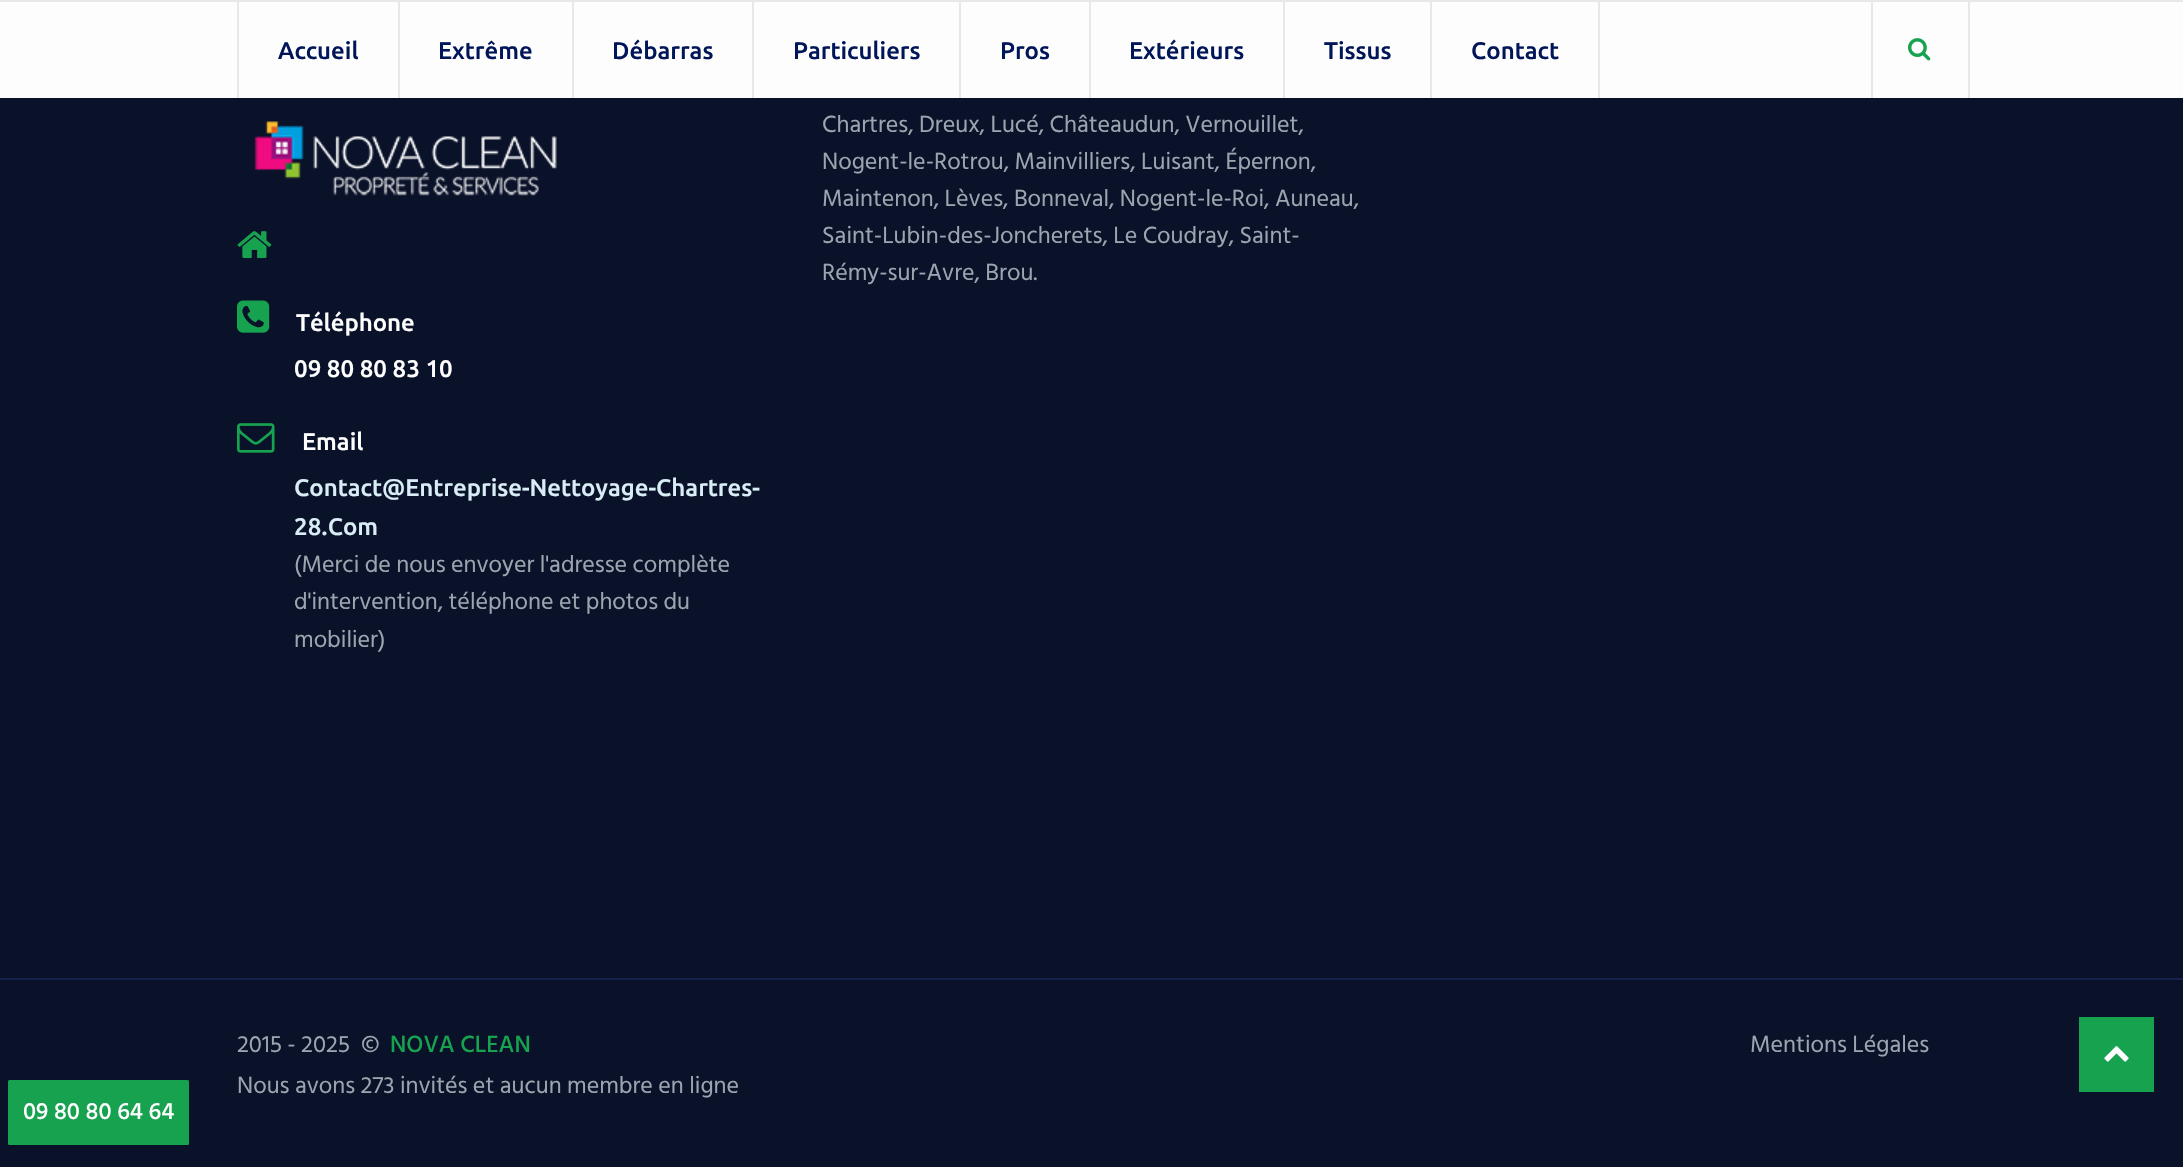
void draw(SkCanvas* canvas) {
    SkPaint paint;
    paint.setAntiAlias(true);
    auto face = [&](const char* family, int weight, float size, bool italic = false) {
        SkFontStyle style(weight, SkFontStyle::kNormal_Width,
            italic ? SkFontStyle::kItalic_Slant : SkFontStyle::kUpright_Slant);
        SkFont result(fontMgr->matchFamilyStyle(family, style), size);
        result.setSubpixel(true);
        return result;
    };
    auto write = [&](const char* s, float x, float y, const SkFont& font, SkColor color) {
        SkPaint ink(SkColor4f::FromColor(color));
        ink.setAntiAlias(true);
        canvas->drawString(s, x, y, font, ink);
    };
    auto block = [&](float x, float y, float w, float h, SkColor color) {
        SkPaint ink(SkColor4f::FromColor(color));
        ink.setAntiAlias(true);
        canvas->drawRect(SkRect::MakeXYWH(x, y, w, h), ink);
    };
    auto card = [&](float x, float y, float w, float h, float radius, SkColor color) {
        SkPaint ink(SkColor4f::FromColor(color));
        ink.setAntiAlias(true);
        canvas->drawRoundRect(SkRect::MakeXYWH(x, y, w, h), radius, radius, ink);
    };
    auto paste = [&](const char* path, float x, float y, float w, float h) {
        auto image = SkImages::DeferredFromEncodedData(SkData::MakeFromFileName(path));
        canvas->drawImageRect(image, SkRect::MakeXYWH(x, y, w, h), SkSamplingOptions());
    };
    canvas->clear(SkColorSetRGB(10, 18, 41));
    block(0, 2, 2183, 96, SkColorSetARGB(252, 255, 255, 255));
    block(0, 0, 2183, 2, SkColorSetRGB(232, 232, 233));
    block(237, 2, 2, 96, SkColorSetRGB(232, 232, 233));
    block(398, 2, 2, 96, SkColorSetRGB(232, 232, 233));
    auto kFont1 = face("Ubuntu", 500, 24);
    write("Accueil", 278, 59, kFont1, SkColorSetRGB(0, 22, 89));
    block(572, 2, 2, 96, SkColorSetRGB(232, 232, 233));
    write("Extrême", 438, 59, kFont1, SkColorSetRGB(0, 22, 89));
    block(752, 2, 2, 96, SkColorSetRGB(232, 232, 233));
    write("Débarras", 612, 59, kFont1, SkColorSetRGB(0, 22, 89));
    block(959, 2, 2, 96, SkColorSetRGB(232, 232, 233));
    write("Particuliers", 793, 59, kFont1, SkColorSetRGB(0, 22, 89));
    block(1089, 2, 2, 96, SkColorSetRGB(232, 232, 233));
    write("Pros", 1000, 59, kFont1, SkColorSetRGB(0, 22, 89));
    block(1283, 2, 2, 96, SkColorSetRGB(232, 232, 233));
    write("Extérieurs", 1129, 59, kFont1, SkColorSetRGB(0, 22, 89));
    block(1430, 2, 2, 96, SkColorSetRGB(232, 232, 233));
    write("Tissus", 1324, 59, kFont1, SkColorSetRGB(0, 22, 89));
    block(1598, 2, 2, 96, SkColorSetRGB(232, 232, 233));
    write("Contact", 1471, 59, kFont1, SkColorSetRGB(0, 22, 89));
    block(1968, 2, 2, 96, SkColorSetRGB(232, 232, 233));
    block(1871, 2, 2, 96, SkColorSetRGB(232, 232, 233));
    paste("pic1.png", 1908, 38, 23, 23);
    auto kFont2 = face("Hind Siliguri", 400, 24);
    write("Chartres, Dreux, Lucé, Châteaudun, Vernouillet,", 822, 132, kFont2, SkColorSetRGB(156, 165, 175));
    write("Nogent-le-Rotrou, Mainvilliers, Luisant, Épernon,", 822, 169, kFont2, SkColorSetRGB(156, 165, 175));
    write("Maintenon, Lèves, Bonneval, Nogent-le-Roi, Auneau,", 822, 206, kFont2, SkColorSetRGB(156, 165, 175));
    write("Saint-Lubin-des-Joncherets, Le Coudray, Saint-", 822, 243, kFont2, SkColorSetRGB(156, 165, 175));
    write("Rémy-sur-Avre, Brou.", 822, 280, kFont2, SkColorSetRGB(156, 165, 175));
    paste("pic2.png", 254, 121, 303, 75);
    paste("pic3.png", 237, 231, 35, 27);
    paste("pic4.png", 237, 300, 33, 33);
    write("Téléphone", 296, 331, kFont1, SK_ColorWHITE);
    write("09 80 80 83 10", 294, 377, kFont1, SK_ColorWHITE);
    paste("pic5.png", 237, 423, 38, 30);
    write("Email", 302, 450, kFont1, SK_ColorWHITE);
    write("Contact@Entreprise-Nettoyage-Chartres-", 294, 496, kFont1, SkColorSetRGB(217, 237, 247));
    write("28.Com", 294, 535, kFont1, SkColorSetRGB(217, 237, 247));
    write("(Merci de nous envoyer l'adresse complète", 294, 572, kFont2, SkColorSetRGB(156, 165, 175));
    write("d'intervention, téléphone et photos du", 294, 609, kFont2, SkColorSetRGB(156, 165, 175));
    write("mobilier)", 294, 647, kFont2, SkColorSetRGB(156, 165, 175));
    block(0, 978, 2183, 2, SkColorSetRGB(19, 34, 78));
    write("2015 - 2025  ©", 237, 1052, kFont2, SkColorSetRGB(156, 165, 175));
    auto kFont3 = face("Hind Siliguri", 500, 24);
    write("NOVA CLEAN", 390, 1052, kFont3, SkColorSetRGB(22, 162, 79));
    write("Nous avons 273 invités et aucun membre en ligne", 237, 1093, kFont2, SkColorSetRGB(156, 165, 175));
    card(8, 1080, 181, 65, 1.5f, SkColorSetRGB(22, 162, 79));
    write("09 80 80 64 64", 23, 1119, kFont3, SK_ColorWHITE);
    write("Mentions Légales", 1750, 1052, kFont2, SkColorSetRGB(156, 165, 175));
    block(2079, 1017, 75, 75, SkColorSetRGB(22, 162, 79));
    paste("pic6.png", 2104, 1046, 25, 16);
}
